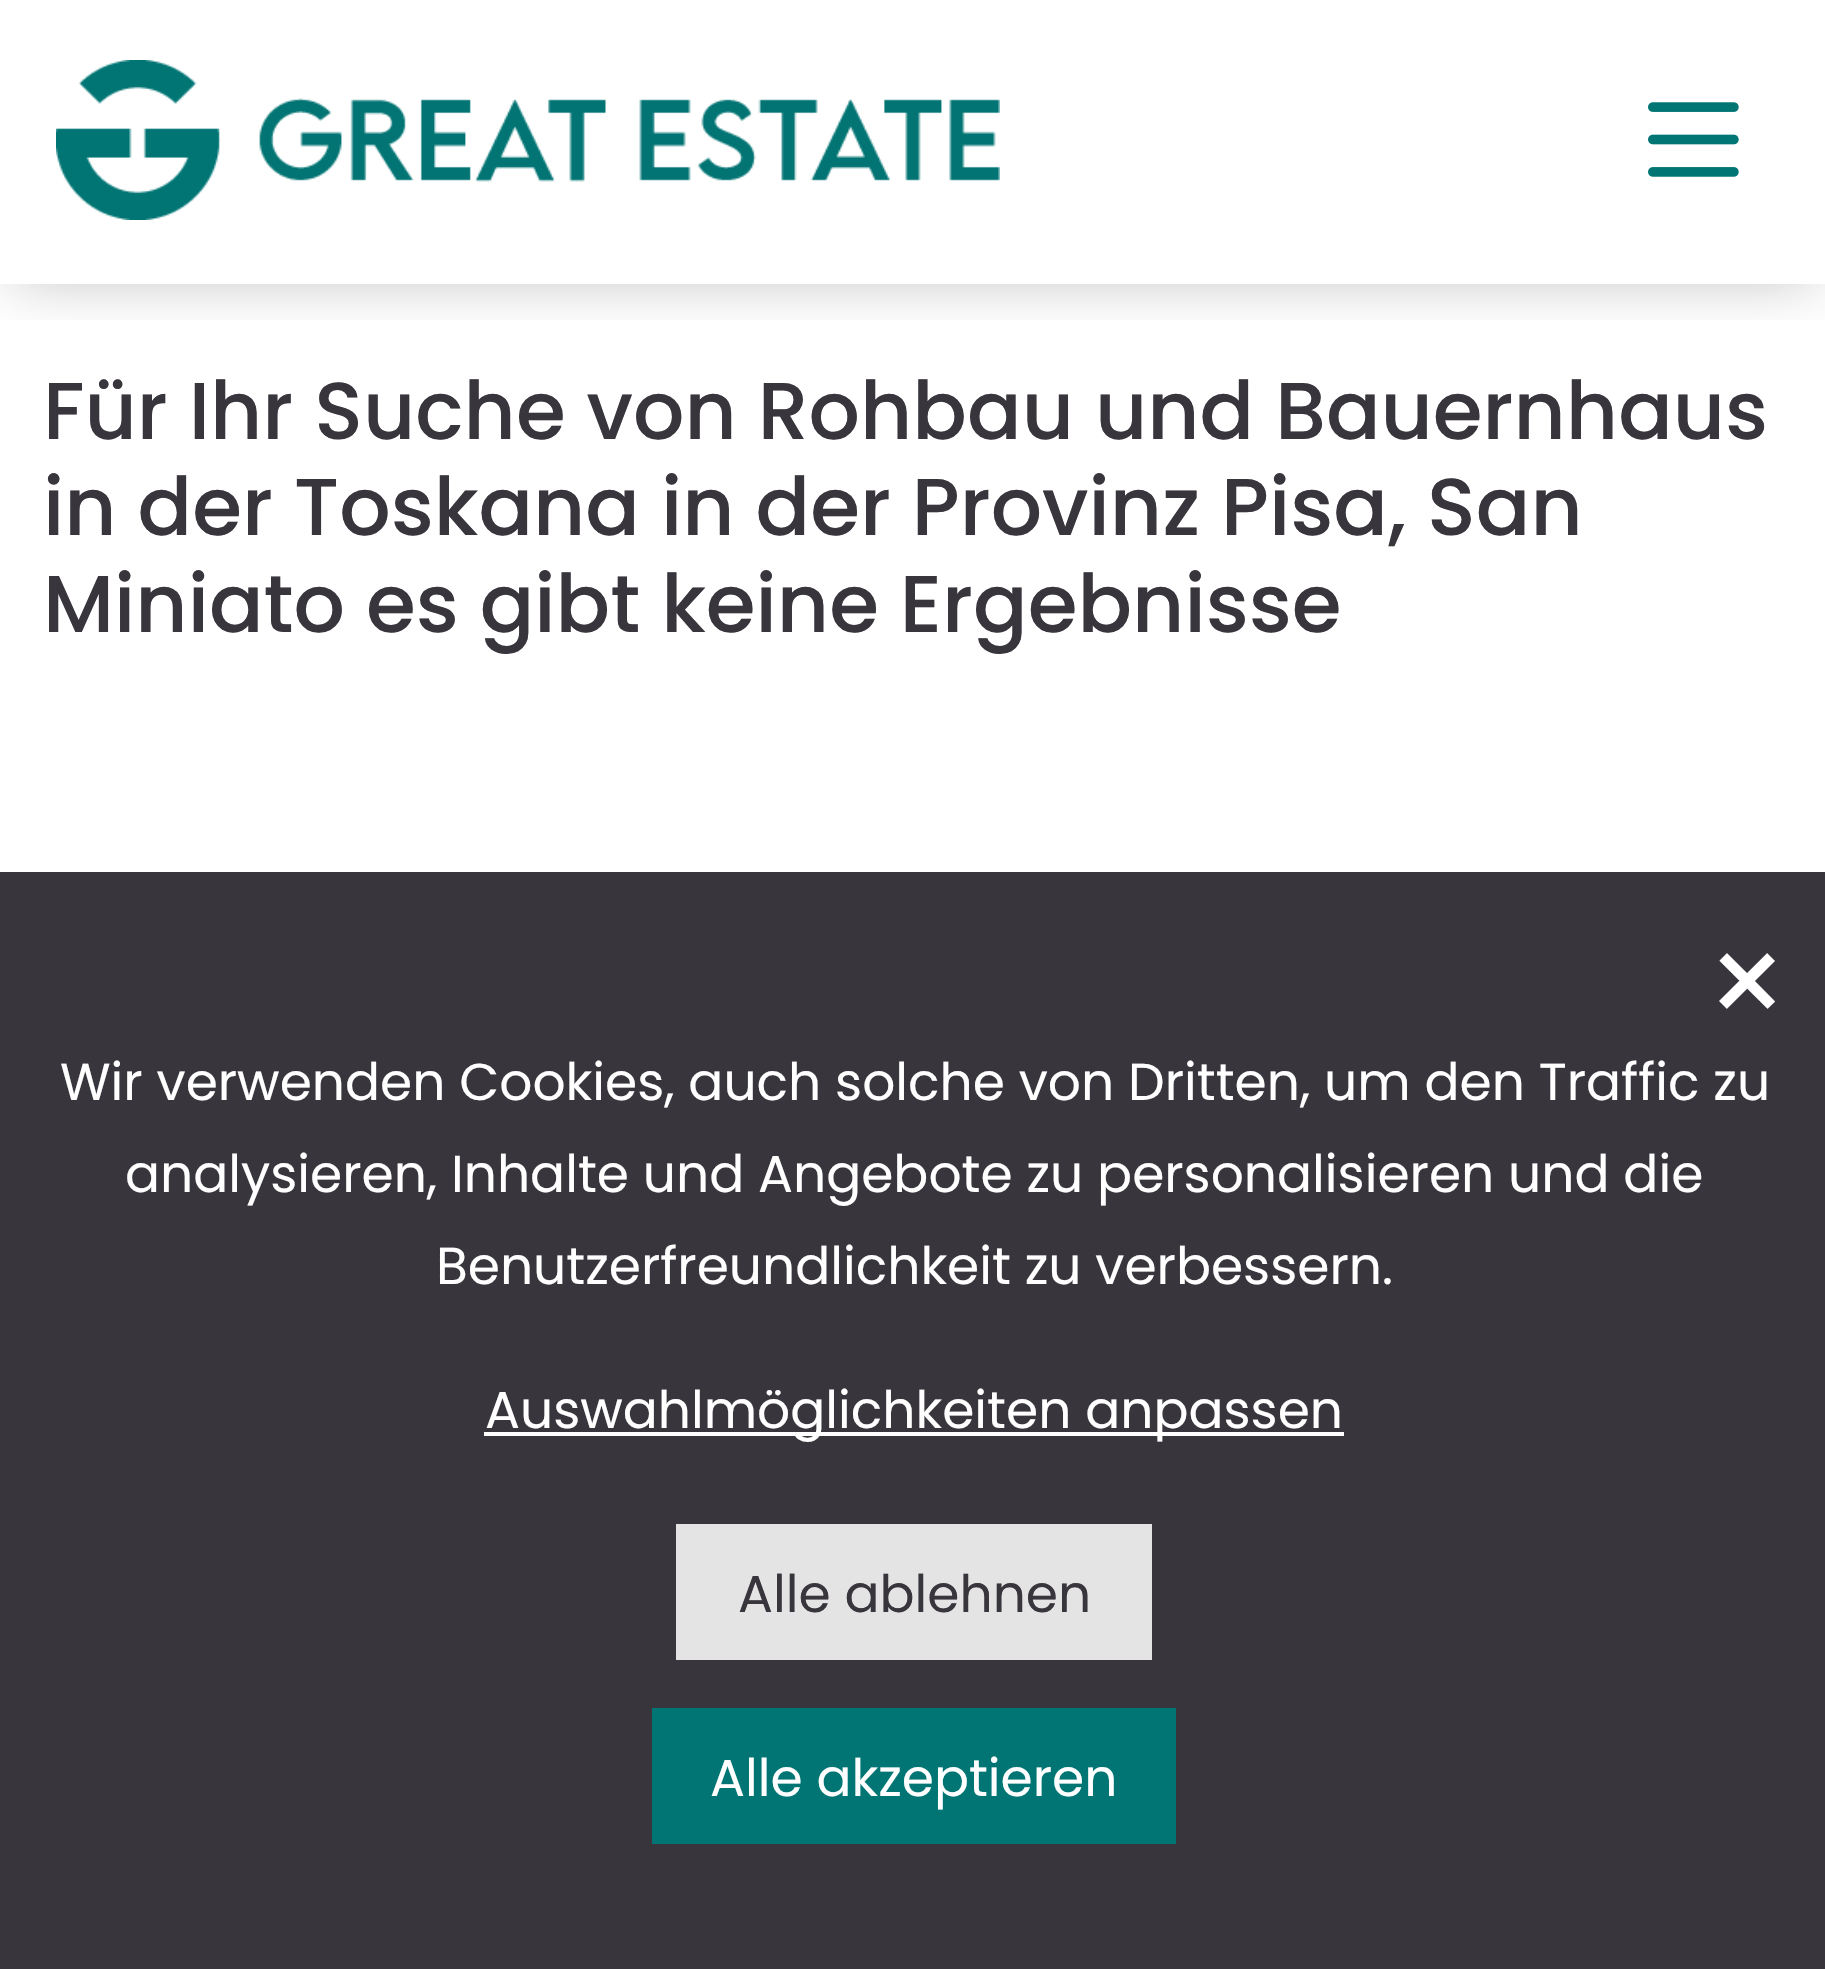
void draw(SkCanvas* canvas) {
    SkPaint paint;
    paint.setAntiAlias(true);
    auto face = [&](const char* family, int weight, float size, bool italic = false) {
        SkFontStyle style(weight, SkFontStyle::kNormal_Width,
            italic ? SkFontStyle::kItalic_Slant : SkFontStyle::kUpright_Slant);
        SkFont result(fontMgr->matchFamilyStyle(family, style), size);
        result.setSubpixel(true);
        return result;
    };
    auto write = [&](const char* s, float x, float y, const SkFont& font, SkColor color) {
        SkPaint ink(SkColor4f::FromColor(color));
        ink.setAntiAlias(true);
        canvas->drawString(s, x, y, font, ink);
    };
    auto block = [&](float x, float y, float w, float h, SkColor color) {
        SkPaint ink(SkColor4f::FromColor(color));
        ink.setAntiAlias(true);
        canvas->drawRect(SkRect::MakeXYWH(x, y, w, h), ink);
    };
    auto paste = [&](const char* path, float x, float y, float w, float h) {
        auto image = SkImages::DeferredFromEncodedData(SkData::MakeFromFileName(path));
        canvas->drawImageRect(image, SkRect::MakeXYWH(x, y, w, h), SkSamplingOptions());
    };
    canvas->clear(SK_ColorWHITE);
    canvas->save();
    canvas->clipRect(SkRect::MakeXYWH(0, 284, 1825, 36));
    paint.setColor(SkColorSetARGB(166, 0, 0, 0));
    paint.setMaskFilter(SkMaskFilter::MakeBlur(kNormal_SkBlurStyle, 32));
    canvas->drawRect(SkRect::MakeXYWH(12, 244, 1804, 20), paint);
    paint.setMaskFilter(nullptr);
    canvas->restore();
    block(0, 177, 1825, 63, SK_ColorWHITE);
    paste("pic1.png", 56, 60, 944, 160);
    paste("pic2.png", 1648, 102, 91, 75);
    auto kFont1 = face("Poppins", 500, 80.6f);
    write("Für Ihr Suche von Rohbau und Bauernhaus", 43, 439, kFont1, SkColorSetRGB(56, 53, 61));
    write("in der Toskana in der Provinz Pisa, San", 43, 535, kFont1, SkColorSetRGB(56, 53, 61));
    write("Miniato es gibt keine Ergebnisse", 43, 632, kFont1, SkColorSetRGB(56, 53, 61));
    block(0, 872, 1825, 1097, SkColorSetRGB(56, 53, 61));
    auto kFont2 = face("Poppins", 400, 128);
    write("×", 1706, 1028, kFont2, SK_ColorWHITE);
    auto kFont3 = face("Poppins", 400, 51.85f);
    write("Wir verwenden Cookies, auch solche von Dritten, um den Traffic zu", 60, 1100, kFont3, SK_ColorWHITE);
    write("analysieren, Inhalte und Angebote zu personalisieren und die", 125, 1192, kFont3, SK_ColorWHITE);
    write("Benutzerfreundlichkeit zu verbessern.", 436, 1284, kFont3, SK_ColorWHITE);
    block(484, 1432, 860, 4, SK_ColorWHITE);
    write("Auswahlmöglichkeiten anpassen", 485, 1428, kFont3, SK_ColorWHITE);
    block(676, 1524, 476, 136, SkColorSetRGB(228, 228, 228));
    write("Alle ablehnen", 738, 1612, kFont3, SkColorSetRGB(56, 53, 61));
    block(652, 1708, 524, 136, SkColorSetRGB(0, 117, 116));
    write("Alle akzeptieren", 710, 1796, kFont3, SK_ColorWHITE);
}
